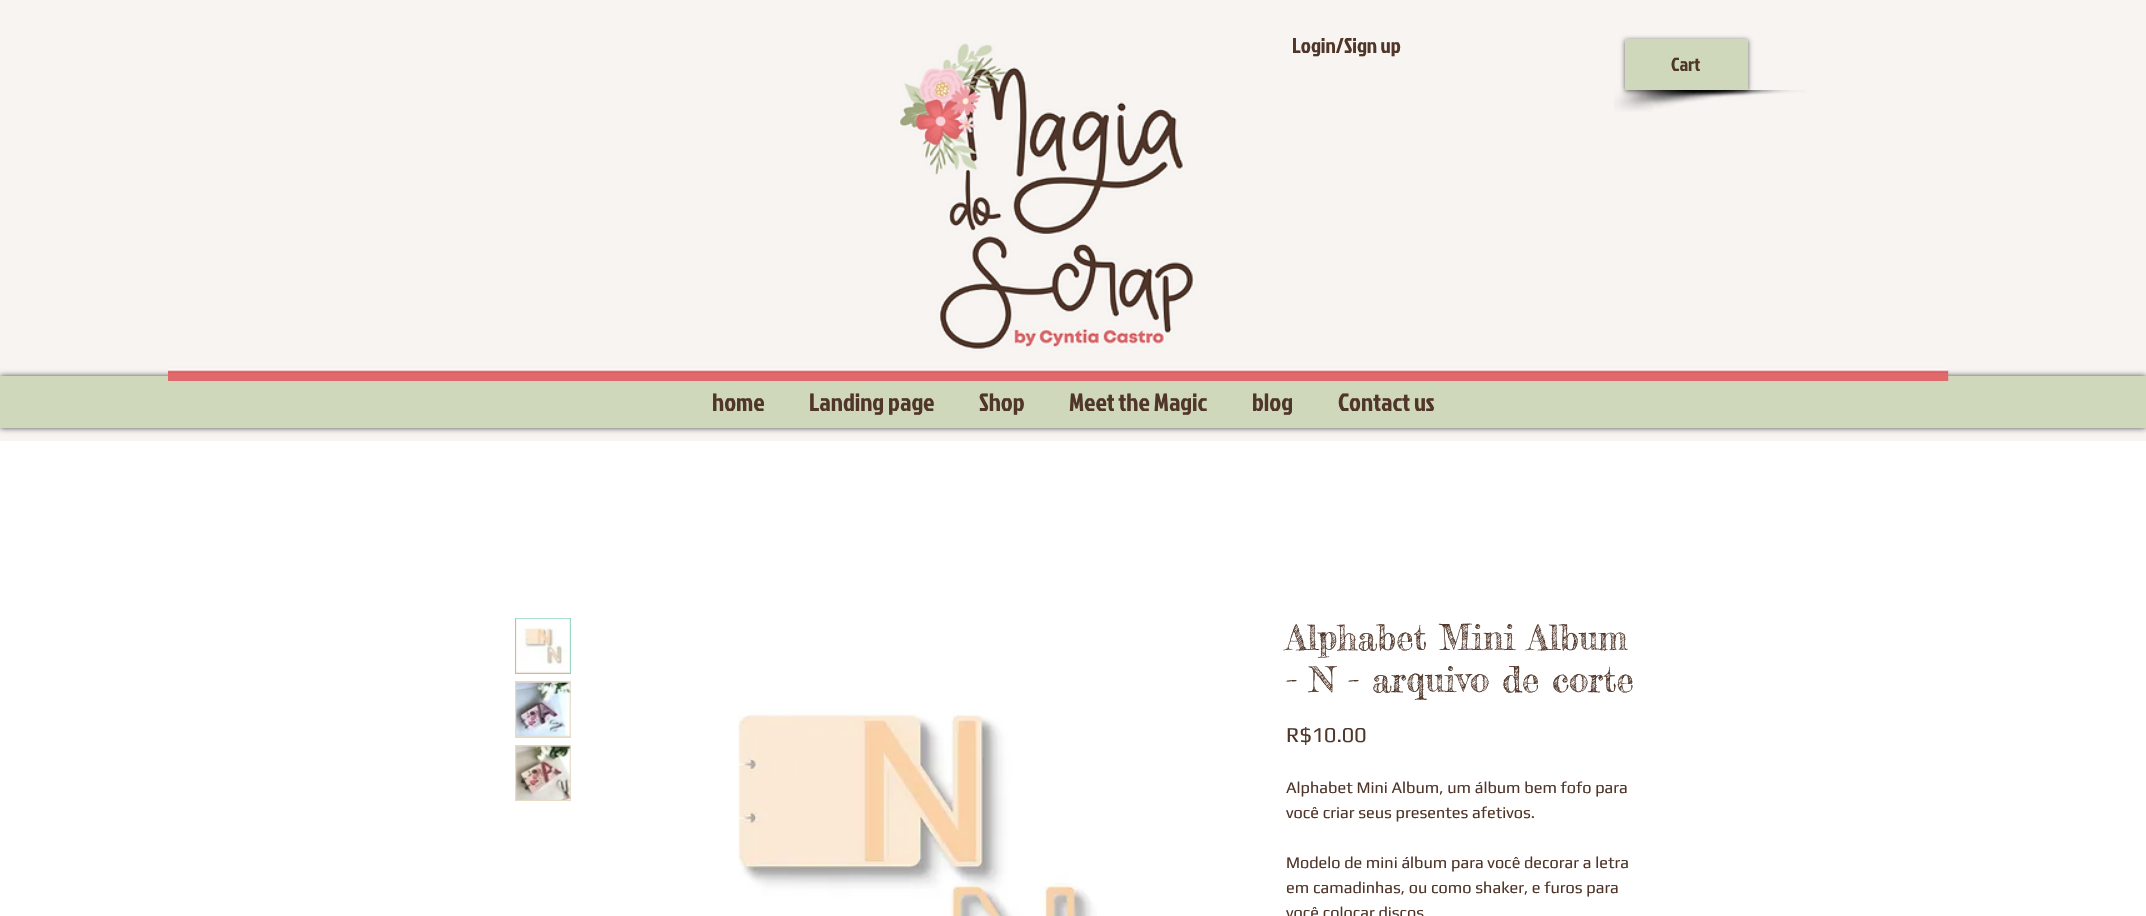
void draw(SkCanvas* canvas) {
    SkPaint paint;
    paint.setAntiAlias(true);
    auto face = [&](const char* family, int weight, float size, bool italic = false) {
        SkFontStyle style(weight, SkFontStyle::kNormal_Width,
            italic ? SkFontStyle::kItalic_Slant : SkFontStyle::kUpright_Slant);
        SkFont result(fontMgr->matchFamilyStyle(family, style), size);
        result.setSubpixel(true);
        return result;
    };
    auto write = [&](const char* s, float x, float y, const SkFont& font, SkColor color) {
        SkPaint ink(SkColor4f::FromColor(color));
        ink.setAntiAlias(true);
        canvas->drawString(s, x, y, font, ink);
    };
    auto block = [&](float x, float y, float w, float h, SkColor color) {
        SkPaint ink(SkColor4f::FromColor(color));
        ink.setAntiAlias(true);
        canvas->drawRect(SkRect::MakeXYWH(x, y, w, h), ink);
    };
    auto paste = [&](const char* path, float x, float y, float w, float h) {
        auto image = SkImages::DeferredFromEncodedData(SkData::MakeFromFileName(path));
        canvas->drawImageRect(image, SkRect::MakeXYWH(x, y, w, h), SkSamplingOptions());
    };
    canvas->clear(SK_ColorWHITE);
    block(0, 0, 2146, 441, SkColorSetRGB(247, 244, 242));
    paint.setColor(SkColorSetARGB(179, 0, 0, 0));
    paint.setMaskFilter(SkMaskFilter::MakeBlur(kNormal_SkBlurStyle, 3));
    canvas->drawRect(SkRect::MakeXYWH(0, 376, 2146, 52), paint);
    paint.setMaskFilter(nullptr);
    block(0, 376, 2146, 52, SkColorSetRGB(207, 216, 186));
    paste("pic1.png", 168, 43, 1781, 338);
    auto kFont1 = face("Jockey One", 400, 21.25f);
    write("Login/Sign up", 1292, 53, kFont1, SkColorSetRGB(80, 54, 41));
    paste("pic2.png", 1614, 90, 192, 22);
    paint.setColor(SkColorSetARGB(153, 0, 0, 0));
    paint.setMaskFilter(SkMaskFilter::MakeBlur(kNormal_SkBlurStyle, 2.5f));
    canvas->drawRect(SkRect::MakeXYWH(1625, 40, 123, 51), paint);
    paint.setMaskFilter(nullptr);
    block(1625, 39, 123, 51, SkColorSetRGB(207, 216, 186));
    auto kFont2 = face("Jockey One", 400, 19);
    write("Cart", 1671, 71, kFont2, SkColorSetRGB(80, 54, 41));
    auto kFont3 = face("Jockey One", 400, 25);
    write("home", 712, 411, kFont3, SkColorSetRGB(80, 54, 41));
    write("Landing page", 809, 411, kFont3, SkColorSetRGB(80, 54, 41));
    write("Shop", 979, 411, kFont3, SkColorSetRGB(80, 54, 41));
    write("Meet the Magic", 1069, 411, kFont3, SkColorSetRGB(80, 54, 41));
    write("blog", 1252, 411, kFont3, SkColorSetRGB(80, 54, 41));
    write("Contact us", 1338, 411, kFont3, SkColorSetRGB(80, 54, 41));
    paint.setColor(SkColorSetRGB(229, 218, 198));
    canvas->drawRect(SkRect::MakeXYWH(515.5f, 618.5f, 55, 55), paint);
    paint.setStyle(SkPaint::kStroke_Style);
    paint.setStrokeWidth(1);
    paint.setColor(SkColorSetRGB(141, 212, 189));
    canvas->drawRect(SkRect::MakeXYWH(515.5f, 618.5f, 55, 55), paint);
    paste("pic3.png", 516, 618, 55, 55);
    block(515, 681, 56, 57, SkColorSetRGB(229, 218, 198));
    paste("pic4.png", 516, 682, 55, 55);
    block(515, 745, 56, 56, SkColorSetRGB(229, 218, 198));
    paste("pic5.png", 516, 745, 55, 55);
    paste("pic6.png", 738, 710, 359, 206);
    auto kFont4 = face("Fredericka the Great", 400, 35);
    write("Alphabet Mini Album", 1286, 650, kFont4, SkColorSetRGB(80, 54, 41));
    write("- N - arquivo de corte", 1286, 692, kFont4, SkColorSetRGB(80, 54, 41));
    auto kFont5 = face("Play", 400, 21.25f);
    write("R$10.00", 1286, 742, kFont5, SkColorSetRGB(80, 54, 41));
    auto kFont6 = face("Play", 400, 16.25f);
    write("Alphabet Mini Album, um álbum bem fofo para", 1286, 793, kFont6, SkColorSetRGB(80, 54, 41));
    write("você criar seus presentes afetivos.", 1286, 818, kFont6, SkColorSetRGB(80, 54, 41));
    write("Modelo de mini álbum para você decorar a letra", 1286, 868, kFont6, SkColorSetRGB(80, 54, 41));
    write("em camadinhas, ou como shaker, e furos para", 1286, 893, kFont6, SkColorSetRGB(80, 54, 41));
    write("você colocar discos", 1286, 918, kFont6, SkColorSetRGB(80, 54, 41));
}
